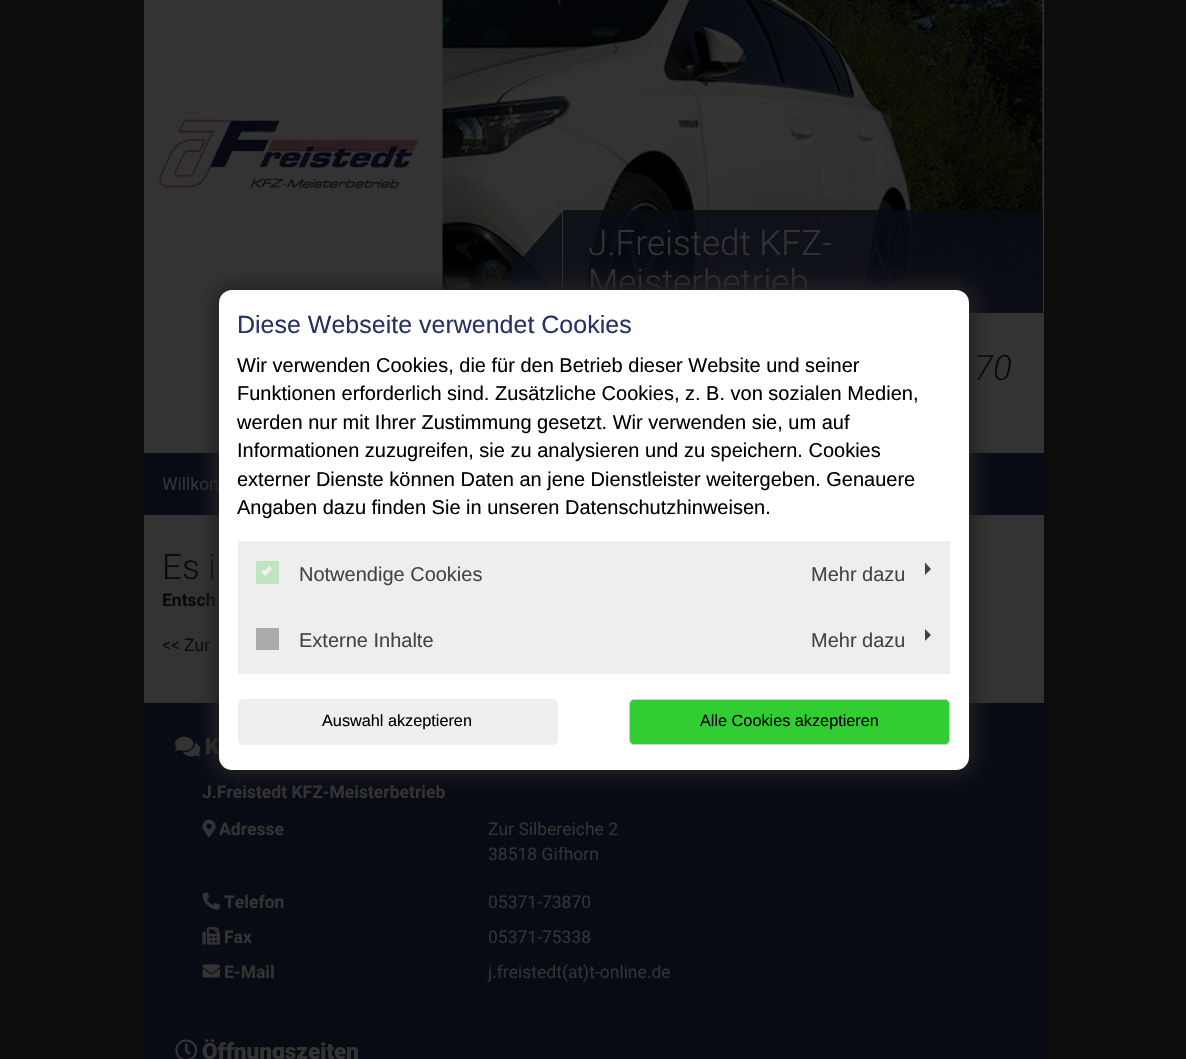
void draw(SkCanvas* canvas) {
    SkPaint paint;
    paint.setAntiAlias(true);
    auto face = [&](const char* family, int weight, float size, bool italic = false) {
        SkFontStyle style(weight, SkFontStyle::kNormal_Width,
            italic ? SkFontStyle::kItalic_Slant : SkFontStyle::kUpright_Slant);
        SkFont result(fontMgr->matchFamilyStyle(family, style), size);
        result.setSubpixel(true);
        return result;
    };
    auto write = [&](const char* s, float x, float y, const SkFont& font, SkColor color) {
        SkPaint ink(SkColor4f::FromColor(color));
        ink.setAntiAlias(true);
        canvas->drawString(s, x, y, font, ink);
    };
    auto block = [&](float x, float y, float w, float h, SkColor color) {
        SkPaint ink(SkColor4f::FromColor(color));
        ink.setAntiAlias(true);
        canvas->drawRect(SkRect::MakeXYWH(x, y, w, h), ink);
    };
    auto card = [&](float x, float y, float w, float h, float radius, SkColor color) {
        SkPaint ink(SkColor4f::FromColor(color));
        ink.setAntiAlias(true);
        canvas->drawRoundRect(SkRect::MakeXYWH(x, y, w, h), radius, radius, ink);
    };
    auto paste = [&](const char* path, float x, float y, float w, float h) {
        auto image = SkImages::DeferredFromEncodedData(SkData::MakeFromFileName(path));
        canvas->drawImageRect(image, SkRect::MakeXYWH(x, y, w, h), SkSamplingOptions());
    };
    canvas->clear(SkColorSetRGB(13, 13, 13));
    block(144, 0, 900, 703, SkColorSetRGB(51, 51, 51));
    paste("pic1.png", 159, 119, 260, 72);
    paste("pic2.png", 442, 0, 601, 313);
    paint.setColor(SkColorSetARGB(217, 8, 10, 20));
    canvas->drawPath(SkPathBuilder().moveTo(562, 312).lineTo(475, 312).lineTo(562, 212).close().detach(), paint);
    block(563, 210, 480, 103, SkColorSetARGB(217, 8, 10, 20));
    auto kFont1 = face("Roboto", 300, 35);
    write("J.Freistedt KFZ-", 588, 255, kFont1, SkColorSetRGB(51, 51, 51));
    write("Meisterbetrieb", 588, 294, kFont1, SkColorSetRGB(51, 51, 51));
    auto kFont2 = face("Roboto", 300, 35, true);
    write("70", 974, 380, kFont2, SkColorSetRGB(10, 10, 10));
    block(144, 453, 900, 62, SkColorSetRGB(8, 10, 20));
    auto kFont3 = face("Roboto", 400, 17.5f);
    write("Willkom", 162, 490, kFont3, SkColorSetRGB(51, 51, 51));
    write("Es i", 162, 579, kFont1, SkColorSetRGB(8, 10, 20));
    auto kFont4 = face("Roboto", 700, 17.5f);
    write("Entsch", 162, 606, kFont4, SkColorSetRGB(10, 10, 10));
    canvas->save();
    canvas->clipRect(SkRect::MakeXYWH(163, 588, 862, 90));
    write("<< Zur", 162, 651, kFont3, SkColorSetRGB(10, 10, 10));
    canvas->restore();
    block(144, 703, 900, 356, SkColorSetRGB(8, 10, 20));
    paste("pic3.png", 175, 736, 26, 21);
    auto kFont5 = face("Roboto", 900, 22.5f);
    write("K", 205, 754, kFont5, SkColorSetRGB(51, 51, 51));
    write("J.Freistedt KFZ-Meisterbetrieb", 202, 798, kFont4, SkColorSetRGB(51, 51, 51));
    paste("pic4.png", 202, 819, 14, 19);
    write("Adresse", 219, 835, kFont4, SkColorSetRGB(51, 51, 51));
    write("Zur Silbereiche 2", 488, 835, kFont3, SkColorSetRGB(51, 51, 51));
    write("38518 Gifhorn", 488, 860, kFont3, SkColorSetRGB(51, 51, 51));
    paste("pic5.png", 202, 892, 18, 18);
    write("Telefon", 224, 908, kFont4, SkColorSetRGB(51, 51, 51));
    write("05371-73870", 488, 908, kFont3, SkColorSetRGB(51, 51, 51));
    paste("pic6.png", 202, 927, 18, 18);
    write("Fax", 224, 943, kFont4, SkColorSetRGB(51, 51, 51));
    write("05371-75338", 488, 943, kFont3, SkColorSetRGB(51, 51, 51));
    paste("pic7.png", 202, 964, 18, 14);
    write("E-Mail", 224, 978, kFont4, SkColorSetRGB(51, 51, 51));
    write("j.freistedt(at)t-online.de", 488, 978, kFont3, SkColorSetRGB(51, 51, 51));
    paste("pic8.png", 175, 1039, 23, 20);
    write("Öffnungszeiten", 202, 1059, kFont5, SkColorSetRGB(51, 51, 51));
    paint.setColor(SkColorSetRGB(34, 34, 34));
    paint.setMaskFilter(SkMaskFilter::MakeBlur(kNormal_SkBlurStyle, 9.5f));
    canvas->drawRoundRect(SkRect::MakeXYWH(213, 284, 762, 492), 19, 19, paint);
    paint.setMaskFilter(nullptr);
    card(219, 290, 750, 480, 13, SK_ColorWHITE);
    auto kFont6 = face("Liberation Sans", 400, 25);
    write("Diese Webseite verwendet Cookies", 237, 333, kFont6, SkColorSetRGB(39, 49, 99));
    auto kFont7 = face("Liberation Sans", 400, 20);
    write("Wir verwenden Cookies, die für den Betrieb dieser Website und seiner", 237, 372, kFont7, SK_ColorBLACK);
    write("Funktionen erforderlich sind. Zusätzliche Cookies, z. B. von sozialen Medien,", 237, 400, kFont7, SK_ColorBLACK);
    write("werden nur mit Ihrer Zustimmung gesetzt. Wir verwenden sie, um auf", 237, 429, kFont7, SK_ColorBLACK);
    write("Informationen zuzugreifen, sie zu analysieren und zu speichern. Cookies", 237, 457, kFont7, SK_ColorBLACK);
    write("externer Dienste können Daten an jene Dienstleister weitergeben. Genauere", 237, 486, kFont7, SK_ColorBLACK);
    write("Angaben dazu finden Sie in unseren Datenschutzhinweisen.", 237, 514, kFont7, SK_ColorBLACK);
    block(238, 541, 712, 133, SkColorSetRGB(238, 238, 238));
    block(256, 561, 23, 23, SkColorSetRGB(191, 230, 191));
    paint.setColor(SkColorSetRGB(242, 242, 242));
    canvas->drawPath(SkPathBuilder().moveTo(269.5f, 566).lineTo(272, 569).lineTo(265, 576).lineTo(262.5f, 573).close().detach(), paint);
    canvas->drawPath(SkPathBuilder().moveTo(264, 569.5f).lineTo(268, 573).lineTo(265, 576).lineTo(261.5f, 572.5f).close().detach(), paint);
    write("Notwendige Cookies", 299, 581, kFont7, SkColorSetRGB(68, 68, 68));
    write("Mehr dazu", 811, 581, kFont7, SkColorSetRGB(68, 68, 68));
    paint.setColor(SkColorSetRGB(68, 68, 68));
    canvas->drawPath(SkPathBuilder().moveTo(925, 575).lineTo(925, 562.5f).lineTo(931, 569).close().detach(), paint);
    block(256, 628, 23, 22, SkColorSetRGB(170, 170, 170));
    write("Externe Inhalte", 299, 647, kFont7, SkColorSetRGB(68, 68, 68));
    write("Mehr dazu", 811, 647, kFont7, SkColorSetRGB(68, 68, 68));
    canvas->drawPath(SkPathBuilder().moveTo(925, 641).lineTo(925, 629).lineTo(931, 635).close().detach(), paint);
    paint.setColor(SkColorSetRGB(238, 238, 238));
    canvas->drawRoundRect(SkRect::MakeXYWH(238.5f, 699.5f, 319, 45), 4.5f, 4.5f, paint);
    paint.setStyle(SkPaint::kStroke_Style);
    paint.setStrokeWidth(1);
    canvas->drawRoundRect(SkRect::MakeXYWH(238.5f, 699.5f, 319, 45), 4.5f, 4.5f, paint);
    auto kFont8 = face("Liberation Sans", 400, 16.25f);
    write("Auswahl akzeptieren", 322, 726, kFont8, SK_ColorBLACK);
    paint.setStyle(SkPaint::kFill_Style);
    paint.setColor(SkColorSetRGB(50, 205, 50));
    canvas->drawRoundRect(SkRect::MakeXYWH(629.5f, 699.5f, 320, 45), 4.5f, 4.5f, paint);
    paint.setStyle(SkPaint::kStroke_Style);
    paint.setColor(SkColorSetRGB(204, 204, 204));
    canvas->drawRoundRect(SkRect::MakeXYWH(629.5f, 699.5f, 320, 45), 4.5f, 4.5f, paint);
    write("Alle Cookies akzeptieren", 700, 726, kFont8, SK_ColorBLACK);
}
